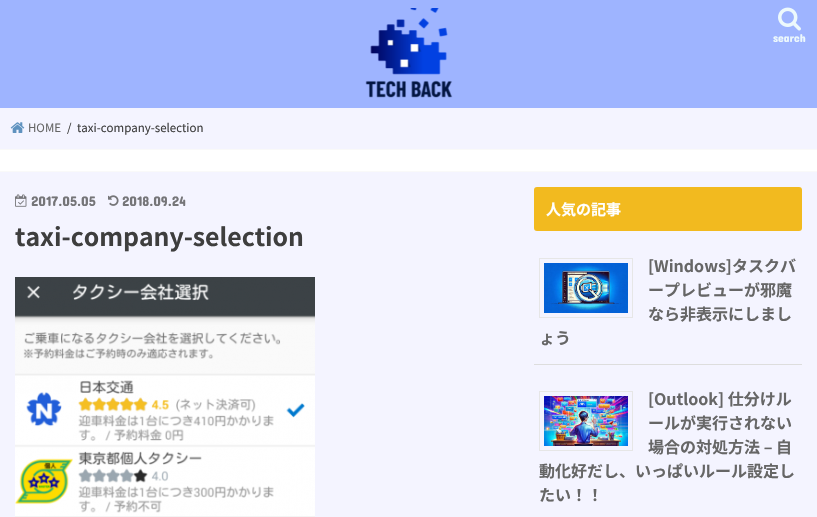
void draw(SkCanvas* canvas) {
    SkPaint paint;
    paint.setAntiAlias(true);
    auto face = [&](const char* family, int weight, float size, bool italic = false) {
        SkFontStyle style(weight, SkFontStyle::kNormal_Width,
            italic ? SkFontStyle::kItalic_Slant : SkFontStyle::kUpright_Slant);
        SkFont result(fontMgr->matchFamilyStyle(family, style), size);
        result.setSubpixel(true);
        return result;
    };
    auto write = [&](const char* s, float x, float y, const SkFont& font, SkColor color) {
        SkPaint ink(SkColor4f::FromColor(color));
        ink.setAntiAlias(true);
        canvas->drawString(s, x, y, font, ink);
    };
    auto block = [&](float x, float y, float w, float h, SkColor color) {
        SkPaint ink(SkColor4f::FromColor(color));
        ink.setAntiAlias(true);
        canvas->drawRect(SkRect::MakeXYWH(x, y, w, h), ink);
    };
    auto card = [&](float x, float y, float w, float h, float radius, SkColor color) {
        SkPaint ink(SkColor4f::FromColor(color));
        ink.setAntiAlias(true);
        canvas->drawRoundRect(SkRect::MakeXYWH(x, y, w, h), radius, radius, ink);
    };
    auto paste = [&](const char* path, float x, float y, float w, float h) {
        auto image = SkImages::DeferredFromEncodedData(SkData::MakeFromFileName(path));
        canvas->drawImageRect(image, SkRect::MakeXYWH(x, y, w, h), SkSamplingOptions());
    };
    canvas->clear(SK_ColorWHITE);
    paint.setColor(SkColorSetRGB(221, 221, 221));
    paint.setMaskFilter(SkMaskFilter::MakeBlur(kNormal_SkBlurStyle, 0.5f));
    canvas->drawRect(SkRect::MakeXYWH(0, 108, 817, 41), paint);
    paint.setMaskFilter(nullptr);
    block(0, 0, 817, 108, SkColorSetRGB(158, 180, 255));
    paste("pic1.png", 365, 8, 88, 90);
    paste("pic2.png", 778, 7, 23, 24);
    auto kFont1 = face("Concert One", 400, 11.5f);
    write("search", 773, 42, kFont1, SkColorSetRGB(237, 249, 252));
    block(0, 108, 817, 41, SkColorSetRGB(244, 244, 255));
    paste("pic3.png", 10, 122, 15, 11);
    auto kFont2 = face("Noto Sans JP", 400, 11.5f);
    write("HOME", 28, 132, kFont2, SkColorSetRGB(102, 102, 102));
    write("/", 67, 132, kFont2, SkColorSetRGB(62, 62, 62));
    write("taxi-company-selection", 77, 132, kFont2, SkColorSetRGB(62, 62, 62));
    paint.setMaskFilter(SkMaskFilter::MakeBlur(kNormal_SkBlurStyle, 0.5f));
    canvas->drawRect(SkRect::MakeXYWH(0, 172, 817, 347), paint);
    paint.setMaskFilter(nullptr);
    block(0, 172, 817, 345, SkColorSetRGB(244, 244, 255));
    paste("pic4.png", 15, 194, 12, 13);
    auto kFont3 = face("Concert One", 400, 14);
    write("2017.05.05", 31, 206, kFont3, SkColorSetRGB(117, 117, 120));
    paste("pic5.png", 108, 195, 11, 11);
    write("2018.09.24", 122, 206, kFont3, SkColorSetRGB(117, 117, 120));
    auto kFont4 = face("Noto Sans JP", 700, 24.75f);
    write("taxi-company-selection", 15, 246, kFont4, SkColorSetRGB(62, 62, 62));
    paste("pic6.png", 15, 277, 300, 240);
    card(534, 187, 268, 44, 3, SkColorSetRGB(242, 186, 31));
    auto kFont5 = face("Noto Sans JP", 700, 15);
    write("人気の記事", 546, 215, kFont5, SK_ColorWHITE);
    block(534, 364, 268, 1, SkColorSetRGB(221, 221, 221));
    paint.setStyle(SkPaint::kStroke_Style);
    paint.setStrokeWidth(1);
    paint.setColor(SkColorSetRGB(230, 230, 230));
    canvas->drawRect(SkRect::MakeXYWH(539.5f, 258.5f, 93, 59), paint);
    paste("pic7.png", 544, 263, 84, 50);
    auto kFont6 = face("Noto Sans JP", 700, 16);
    write("[Windows]タスクバ", 648, 272, kFont6, SkColorSetRGB(102, 102, 102));
    write("ープレビューが邪魔", 648, 296, kFont6, SkColorSetRGB(102, 102, 102));
    write("なら非表示にしまし", 648, 320, kFont6, SkColorSetRGB(102, 102, 102));
    write("ょう", 539, 344, kFont6, SkColorSetRGB(102, 102, 102));
    write("[Outlook] 仕分けル", 648, 405, kFont6, SkColorSetRGB(102, 102, 102));
    write("ールが実行されない", 648, 429, kFont6, SkColorSetRGB(102, 102, 102));
    write("場合の対処方法 – 自", 648, 453, kFont6, SkColorSetRGB(102, 102, 102));
    write("動化好だし、いっぱいルール設定し", 539, 477, kFont6, SkColorSetRGB(102, 102, 102));
    write("たい！！", 539, 501, kFont6, SkColorSetRGB(102, 102, 102));
    canvas->drawRect(SkRect::MakeXYWH(539.5f, 391.5f, 93, 59), paint);
    paste("pic8.png", 544, 396, 84, 50);
}
